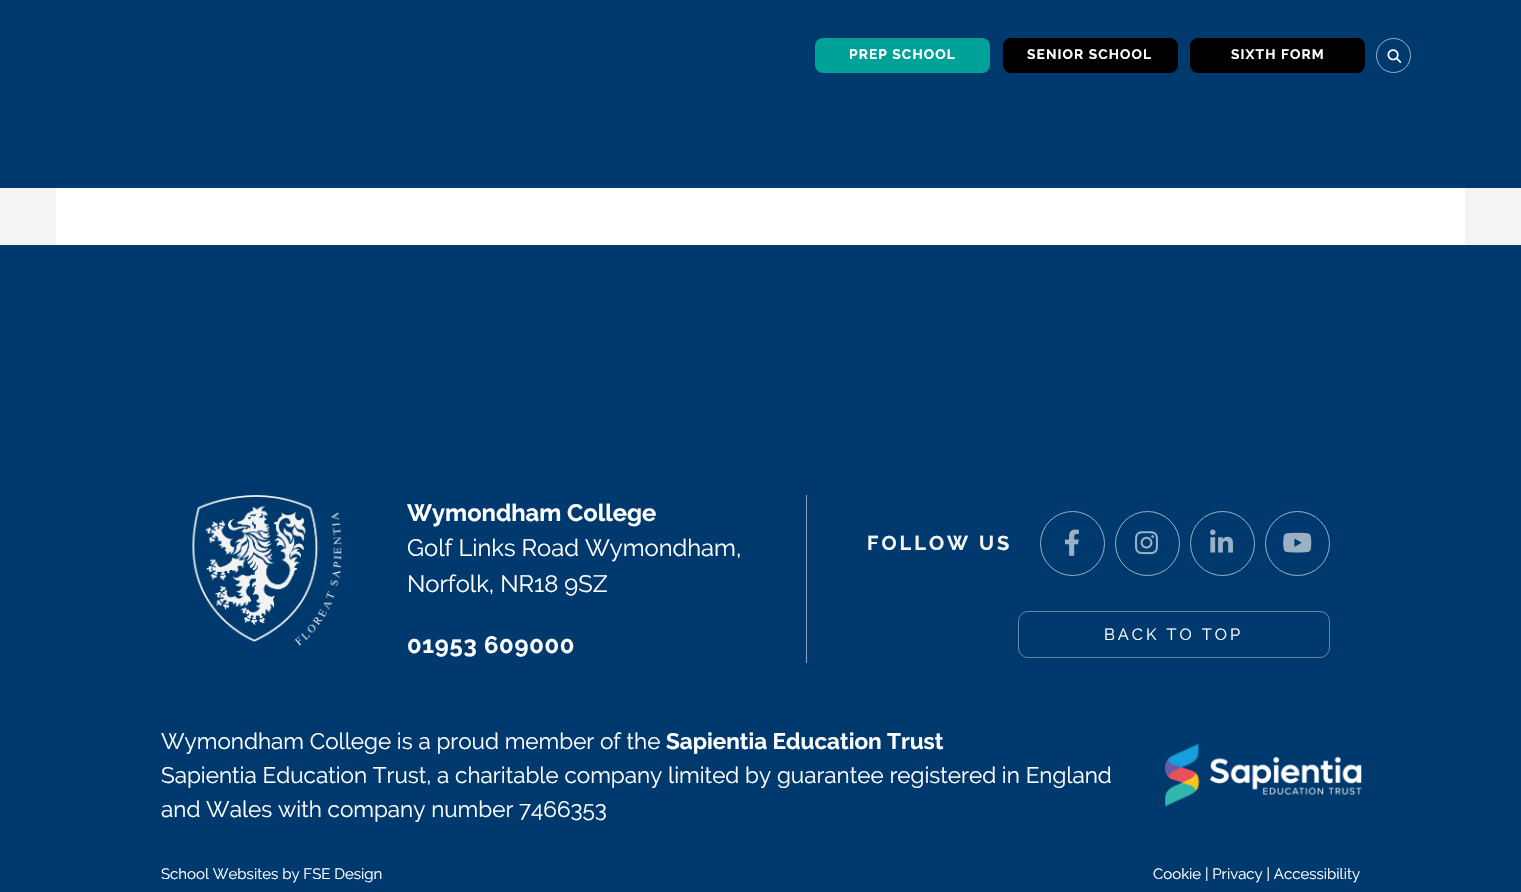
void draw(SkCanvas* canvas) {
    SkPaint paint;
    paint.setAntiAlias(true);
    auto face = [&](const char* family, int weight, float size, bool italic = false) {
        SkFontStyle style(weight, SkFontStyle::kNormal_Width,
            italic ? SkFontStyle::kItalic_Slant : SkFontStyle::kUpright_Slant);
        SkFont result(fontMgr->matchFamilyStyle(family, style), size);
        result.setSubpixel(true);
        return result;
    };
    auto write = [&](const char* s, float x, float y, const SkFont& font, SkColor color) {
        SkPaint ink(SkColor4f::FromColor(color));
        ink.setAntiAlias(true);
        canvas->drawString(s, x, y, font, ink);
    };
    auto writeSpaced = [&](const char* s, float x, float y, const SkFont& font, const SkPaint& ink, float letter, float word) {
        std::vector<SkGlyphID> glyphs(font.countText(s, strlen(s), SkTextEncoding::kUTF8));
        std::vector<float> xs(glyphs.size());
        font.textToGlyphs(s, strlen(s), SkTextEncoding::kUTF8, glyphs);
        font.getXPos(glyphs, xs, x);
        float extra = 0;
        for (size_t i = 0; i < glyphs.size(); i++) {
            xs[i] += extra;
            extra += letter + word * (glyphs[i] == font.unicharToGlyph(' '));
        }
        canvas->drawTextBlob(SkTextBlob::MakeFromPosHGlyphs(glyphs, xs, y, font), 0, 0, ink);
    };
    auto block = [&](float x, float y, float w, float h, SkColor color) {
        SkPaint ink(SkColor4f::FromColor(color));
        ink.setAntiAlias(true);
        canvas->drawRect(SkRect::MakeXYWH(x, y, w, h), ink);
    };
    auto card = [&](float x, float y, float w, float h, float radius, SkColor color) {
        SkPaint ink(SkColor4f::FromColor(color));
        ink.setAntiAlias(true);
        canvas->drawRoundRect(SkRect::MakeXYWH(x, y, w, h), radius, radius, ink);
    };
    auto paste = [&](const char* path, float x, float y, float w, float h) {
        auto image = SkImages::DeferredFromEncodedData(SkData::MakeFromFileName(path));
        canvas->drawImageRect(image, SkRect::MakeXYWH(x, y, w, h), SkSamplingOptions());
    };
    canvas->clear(SkColorSetRGB(244, 244, 244));
    block(0, 0, 1521, 188, SkColorSetRGB(0, 57, 109));
    card(815, 38, 175, 35, 8, SkColorSetRGB(0, 162, 151));
    auto kFont1 = face("Raleway", 700, 13.75f);
    paint.setColor(SK_ColorWHITE);
    writeSpaced("PREP SCHOOL", 849, 59, kFont1, paint, 1.1f, 0);
    card(1003, 38, 175, 35, 8, SK_ColorBLACK);
    writeSpaced("SENIOR SCHOOL", 1027, 59, kFont1, paint, 1.1f, 0);
    card(1190, 38, 175, 35, 8, SK_ColorBLACK);
    writeSpaced("SIXTH FORM", 1231, 59, kFont1, paint, 1.1f, 0);
    paint.setStyle(SkPaint::kStroke_Style);
    paint.setStrokeWidth(1);
    paint.setColor(SkColorSetRGB(153, 176, 197));
    canvas->drawCircle(1393.5f, 55.5f, 17, paint);
    paste("pic1.png", 1387, 49, 15, 14);
    block(56, 188, 1409, 57, SK_ColorWHITE);
    block(0, 245, 1521, 647, SkColorSetRGB(0, 57, 109));
    paste("pic2.png", 192, 495, 150, 151);
    auto kFont2 = face("Raleway", 700, 23.75f);
    write("Wymondham College", 407, 521, kFont2, SK_ColorWHITE);
    auto kFont3 = face("Raleway", 400, 23.75f);
    write("Golf Links Road Wymondham,", 407, 556, kFont3, SK_ColorWHITE);
    write("Norfolk, NR18 9SZ", 407, 592, kFont3, SK_ColorWHITE);
    paint.setStyle(SkPaint::kFill_Style);
    paint.setColor(SK_ColorWHITE);
    writeSpaced("01953 609000", 407, 653, kFont2, paint, 0.75f, 0);
    block(806, 495, 1, 168, SkColorSetRGB(140, 166, 189));
    auto kFont4 = face("Raleway", 700, 20);
    paint.setColor(SkColorSetRGB(244, 244, 244));
    writeSpaced("FOLLOW US", 867, 550, kFont4, paint, 3, 0);
    paint.setStyle(SkPaint::kStroke_Style);
    paint.setColor(SkColorSetRGB(153, 176, 197));
    canvas->drawCircle(1072.5f, 543.5f, 32, paint);
    paste("pic3.png", 1064, 529, 15, 27);
    canvas->drawCircle(1147.5f, 543.5f, 32, paint);
    paste("pic4.png", 1135, 531, 23, 24);
    canvas->drawCircle(1222.5f, 543.5f, 32, paint);
    paste("pic5.png", 1210, 529, 23, 24);
    canvas->drawCircle(1297.5f, 543.5f, 32, paint);
    paste("pic6.png", 1283, 532, 29, 21);
    paint.setColor(SkColorSetRGB(102, 136, 167));
    canvas->drawRoundRect(SkRect::MakeXYWH(1018.5f, 611.5f, 311, 46), 9.5f, 9.5f, paint);
    auto kFont5 = face("Raleway", 400, 16.25f);
    paint.setStyle(SkPaint::kFill_Style);
    paint.setColor(SK_ColorWHITE);
    writeSpaced("BACK TO TOP", 1104, 640, kFont5, paint, 3, 0);
    auto kFont6 = face("Raleway", 400, 22.5f);
    write("Wymondham College is a proud member of the", 161, 749, kFont6, SK_ColorWHITE);
    auto kFont7 = face("Raleway", 700, 22.5f);
    write("Sapientia Education Trust", 666, 749, kFont7, SK_ColorWHITE);
    write("Sapientia Education Trust, a charitable company limited by guarantee registered in England", 161, 783, kFont6, SK_ColorWHITE);
    write("and Wales with company number 7466353", 161, 817, kFont6, SK_ColorWHITE);
    paste("pic7.png", 1165, 743, 197, 64);
    auto kFont8 = face("Raleway", 400, 15);
    write("School Websites by FSE Design", 161, 879, kFont8, SK_ColorWHITE);
    write("Cookie | Privacy | Accessibility", 1153, 879, kFont8, SK_ColorWHITE);
}
